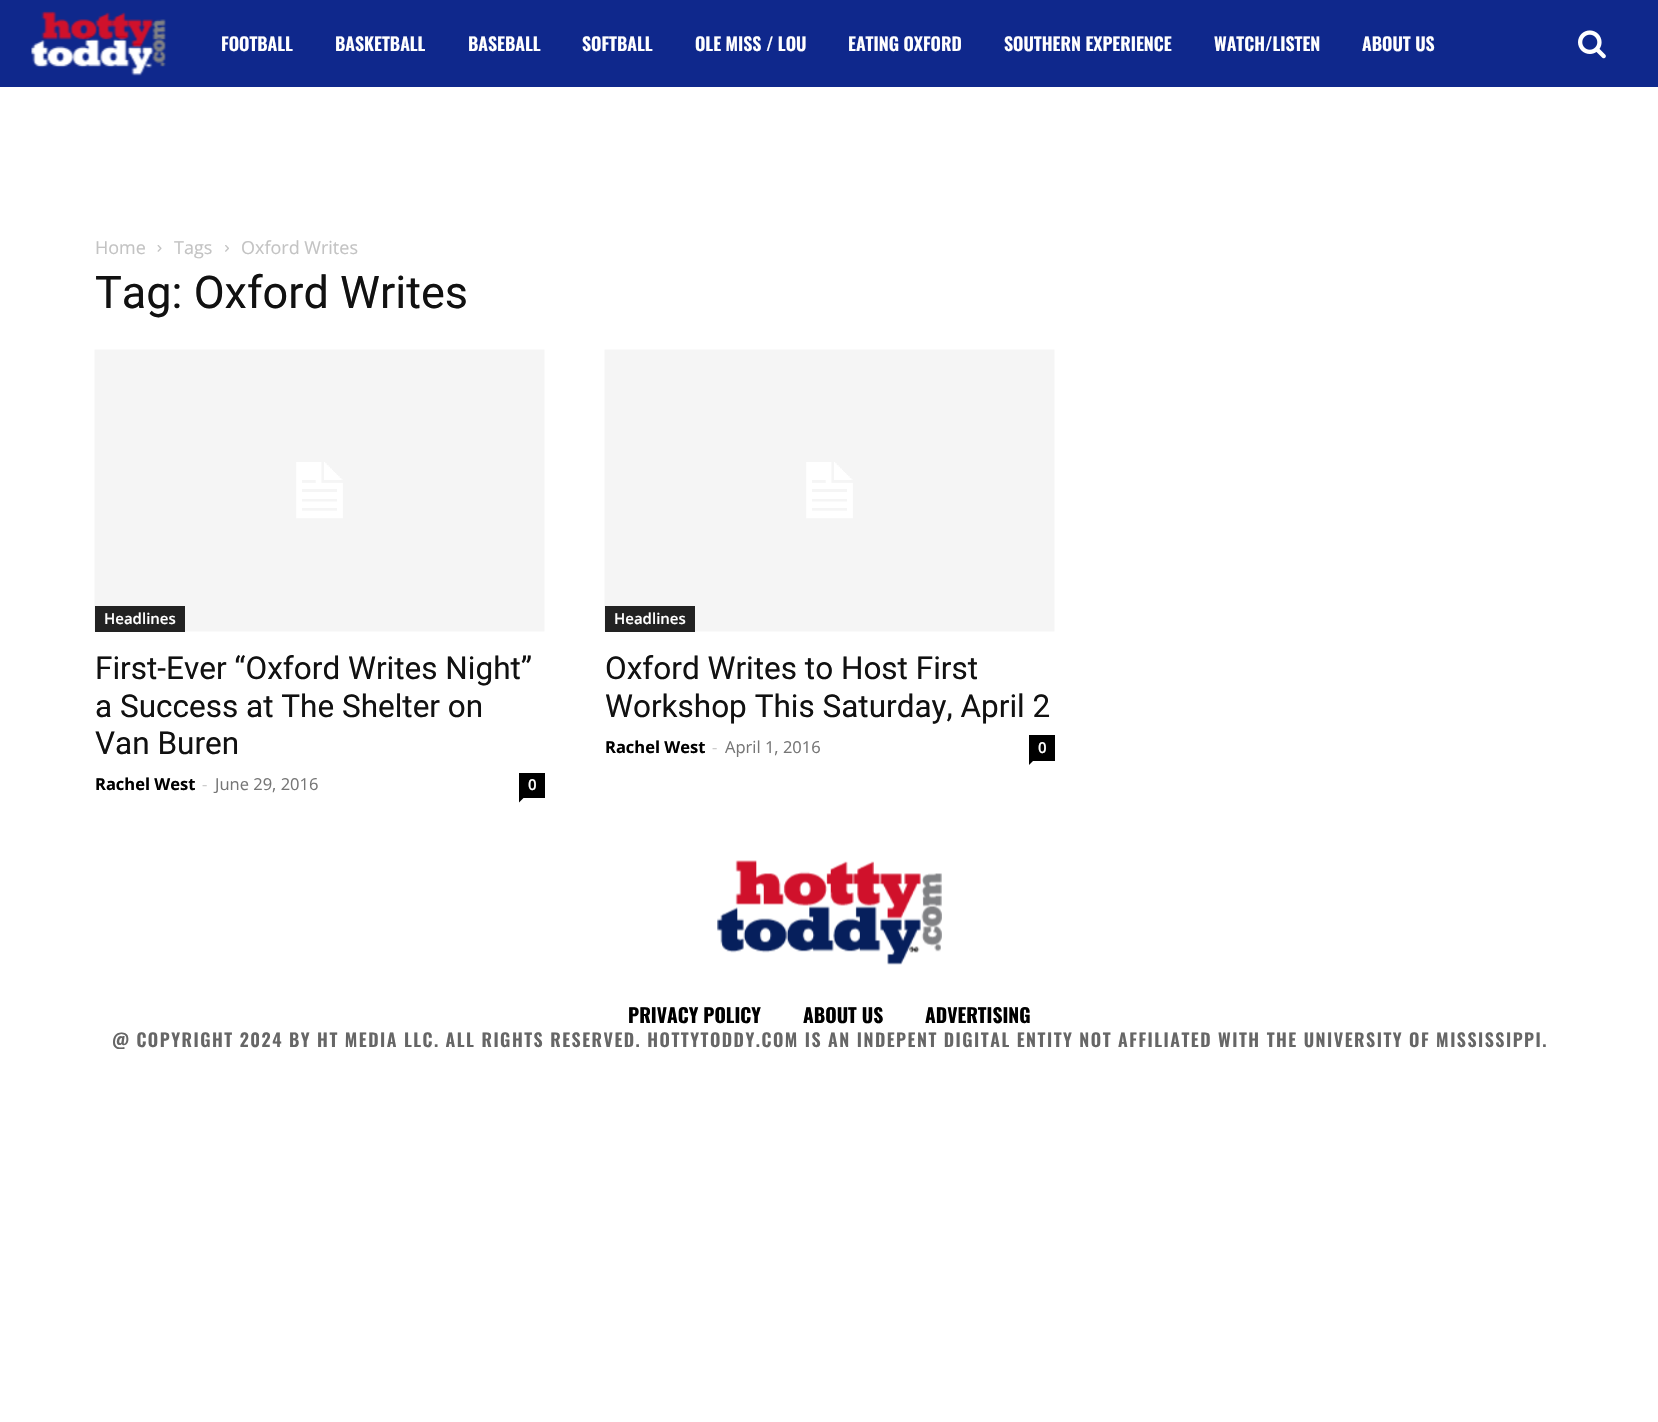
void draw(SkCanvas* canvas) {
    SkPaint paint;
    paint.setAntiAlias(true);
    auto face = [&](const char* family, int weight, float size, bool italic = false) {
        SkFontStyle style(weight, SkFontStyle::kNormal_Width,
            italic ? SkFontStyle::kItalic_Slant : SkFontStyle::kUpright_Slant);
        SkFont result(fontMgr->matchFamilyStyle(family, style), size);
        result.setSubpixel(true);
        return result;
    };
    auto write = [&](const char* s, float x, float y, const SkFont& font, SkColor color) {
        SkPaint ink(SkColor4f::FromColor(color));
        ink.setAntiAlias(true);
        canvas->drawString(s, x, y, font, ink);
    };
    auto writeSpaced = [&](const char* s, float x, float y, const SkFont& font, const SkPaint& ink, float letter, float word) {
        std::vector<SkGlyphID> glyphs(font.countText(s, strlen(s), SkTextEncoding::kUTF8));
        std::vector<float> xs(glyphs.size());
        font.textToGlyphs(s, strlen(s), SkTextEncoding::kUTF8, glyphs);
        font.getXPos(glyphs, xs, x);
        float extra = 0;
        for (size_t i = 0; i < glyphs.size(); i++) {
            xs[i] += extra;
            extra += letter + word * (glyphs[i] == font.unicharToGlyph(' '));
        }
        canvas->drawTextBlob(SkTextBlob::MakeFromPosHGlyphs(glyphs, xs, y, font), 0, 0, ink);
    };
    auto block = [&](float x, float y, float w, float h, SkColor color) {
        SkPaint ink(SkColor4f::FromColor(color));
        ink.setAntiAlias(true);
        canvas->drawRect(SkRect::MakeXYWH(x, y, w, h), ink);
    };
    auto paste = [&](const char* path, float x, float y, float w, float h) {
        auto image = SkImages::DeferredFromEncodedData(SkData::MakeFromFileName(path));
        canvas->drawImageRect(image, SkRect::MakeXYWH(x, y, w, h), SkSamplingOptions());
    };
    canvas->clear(SK_ColorWHITE);
    block(0, 0, 1658, 87, SkColorSetRGB(15, 40, 140));
    paste("pic1.png", 31, 11, 135, 65);
    auto kFont1 = face("Oswald", 600, 18);
    write("FOOTBALL", 221, 51, kFont1, SK_ColorWHITE);
    write("BASKETBALL", 335, 51, kFont1, SK_ColorWHITE);
    write("BASEBALL", 468, 51, kFont1, SK_ColorWHITE);
    write("SOFTBALL", 582, 51, kFont1, SK_ColorWHITE);
    write("OLE MISS / LOU", 695, 51, kFont1, SK_ColorWHITE);
    write("EATING OXFORD", 848, 51, kFont1, SK_ColorWHITE);
    write("SOUTHERN EXPERIENCE", 1004, 51, kFont1, SK_ColorWHITE);
    write("WATCH/LISTEN", 1214, 51, kFont1, SK_ColorWHITE);
    write("ABOUT US", 1362, 51, kFont1, SK_ColorWHITE);
    paste("pic2.png", 1578, 30, 28, 29);
    auto kFont2 = face("Open Sans", 400, 18);
    write("Home", 95, 254, kFont2, SkColorSetRGB(195, 195, 195));
    paste("pic3.png", 157, 245, 5, 7);
    write("Tags", 174, 254, kFont2, SkColorSetRGB(195, 195, 195));
    paste("pic4.png", 225, 245, 4, 7);
    write("Oxford Writes", 241, 254, kFont2, SkColorSetRGB(195, 195, 195));
    auto kFont3 = face("Roboto", 400, 45);
    write("Tag: Oxford Writes", 95, 308, kFont3, SkColorSetRGB(17, 17, 17));
    paste("pic5.png", 94, 349, 451, 283);
    block(95, 606, 90, 26, SkColorSetRGB(34, 34, 34));
    auto kFont4 = face("Open Sans", 600, 15);
    write("Headlines", 104, 624, kFont4, SK_ColorWHITE);
    auto kFont5 = face("Roboto", 400, 31.5f);
    write("First-Ever “Oxford Writes Night”", 95, 679, kFont5, SkColorSetRGB(17, 17, 17));
    write("a Success at The Shelter on", 95, 717, kFont5, SkColorSetRGB(17, 17, 17));
    write("Van Buren", 95, 754, kFont5, SkColorSetRGB(17, 17, 17));
    auto kFont6 = face("Open Sans", 700, 16.5f);
    write("Rachel West", 95, 790, kFont6, SK_ColorBLACK);
    auto kFont7 = face("Open Sans", 400, 16.5f);
    write("-", 202, 790, kFont7, SkColorSetRGB(204, 204, 204));
    write("June 29, 2016", 215, 790, kFont7, SkColorSetRGB(118, 118, 118));
    block(519, 773, 26, 25, SK_ColorBLACK);
    write("0", 528, 790, kFont4, SK_ColorWHITE);
    paint.setColor(SK_ColorBLACK);
    canvas->drawPath(SkPathBuilder().moveTo(519, 798).lineTo(523.5f, 798).lineTo(519, 802.5f).close().detach(), paint);
    paste("pic5.png", 604, 349, 451, 283);
    block(605, 606, 90, 26, SkColorSetRGB(34, 34, 34));
    write("Headlines", 614, 624, kFont4, SK_ColorWHITE);
    write("Oxford Writes to Host First", 605, 679, kFont5, SkColorSetRGB(17, 17, 17));
    write("Workshop This Saturday, April 2", 605, 717, kFont5, SkColorSetRGB(17, 17, 17));
    write("Rachel West", 605, 753, kFont6, SK_ColorBLACK);
    write("-", 712, 753, kFont7, SkColorSetRGB(204, 204, 204));
    write("April 1, 2016", 725, 753, kFont7, SkColorSetRGB(118, 118, 118));
    block(1029, 735, 26, 26, SK_ColorBLACK);
    write("0", 1038, 753, kFont4, SK_ColorWHITE);
    canvas->drawPath(SkPathBuilder().moveTo(1029, 760.5f).lineTo(1033.5f, 760.5f).lineTo(1029, 765).close().detach(), paint);
    paste("pic6.png", 717, 860, 225, 105);
    auto kFont8 = face("Oswald", 700, 19.5f);
    write("PRIVACY POLICY", 628, 1023, kFont8, SK_ColorBLACK);
    write("ABOUT US", 803, 1023, kFont8, SK_ColorBLACK);
    write("ADVERTISING", 925, 1023, kFont8, SK_ColorBLACK);
    canvas->save();
    canvas->clipRect(SkRect::MakeXYWH(0, 0, 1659, 1049));
    paint.setColor(SkColorSetRGB(102, 102, 102));
    writeSpaced("@ COPYRIGHT 2024 BY HT MEDIA LLC. ALL RIGHTS RESERVED. HOTTYTODDY.COM IS AN INDEPENT DIGITAL ENTITY NOT AFFILIATED WITH THE UNIVERSITY OF MISSISSIPPI.", 112, 1047, kFont1, paint, 1.5f, 0);
    canvas->restore();
}
